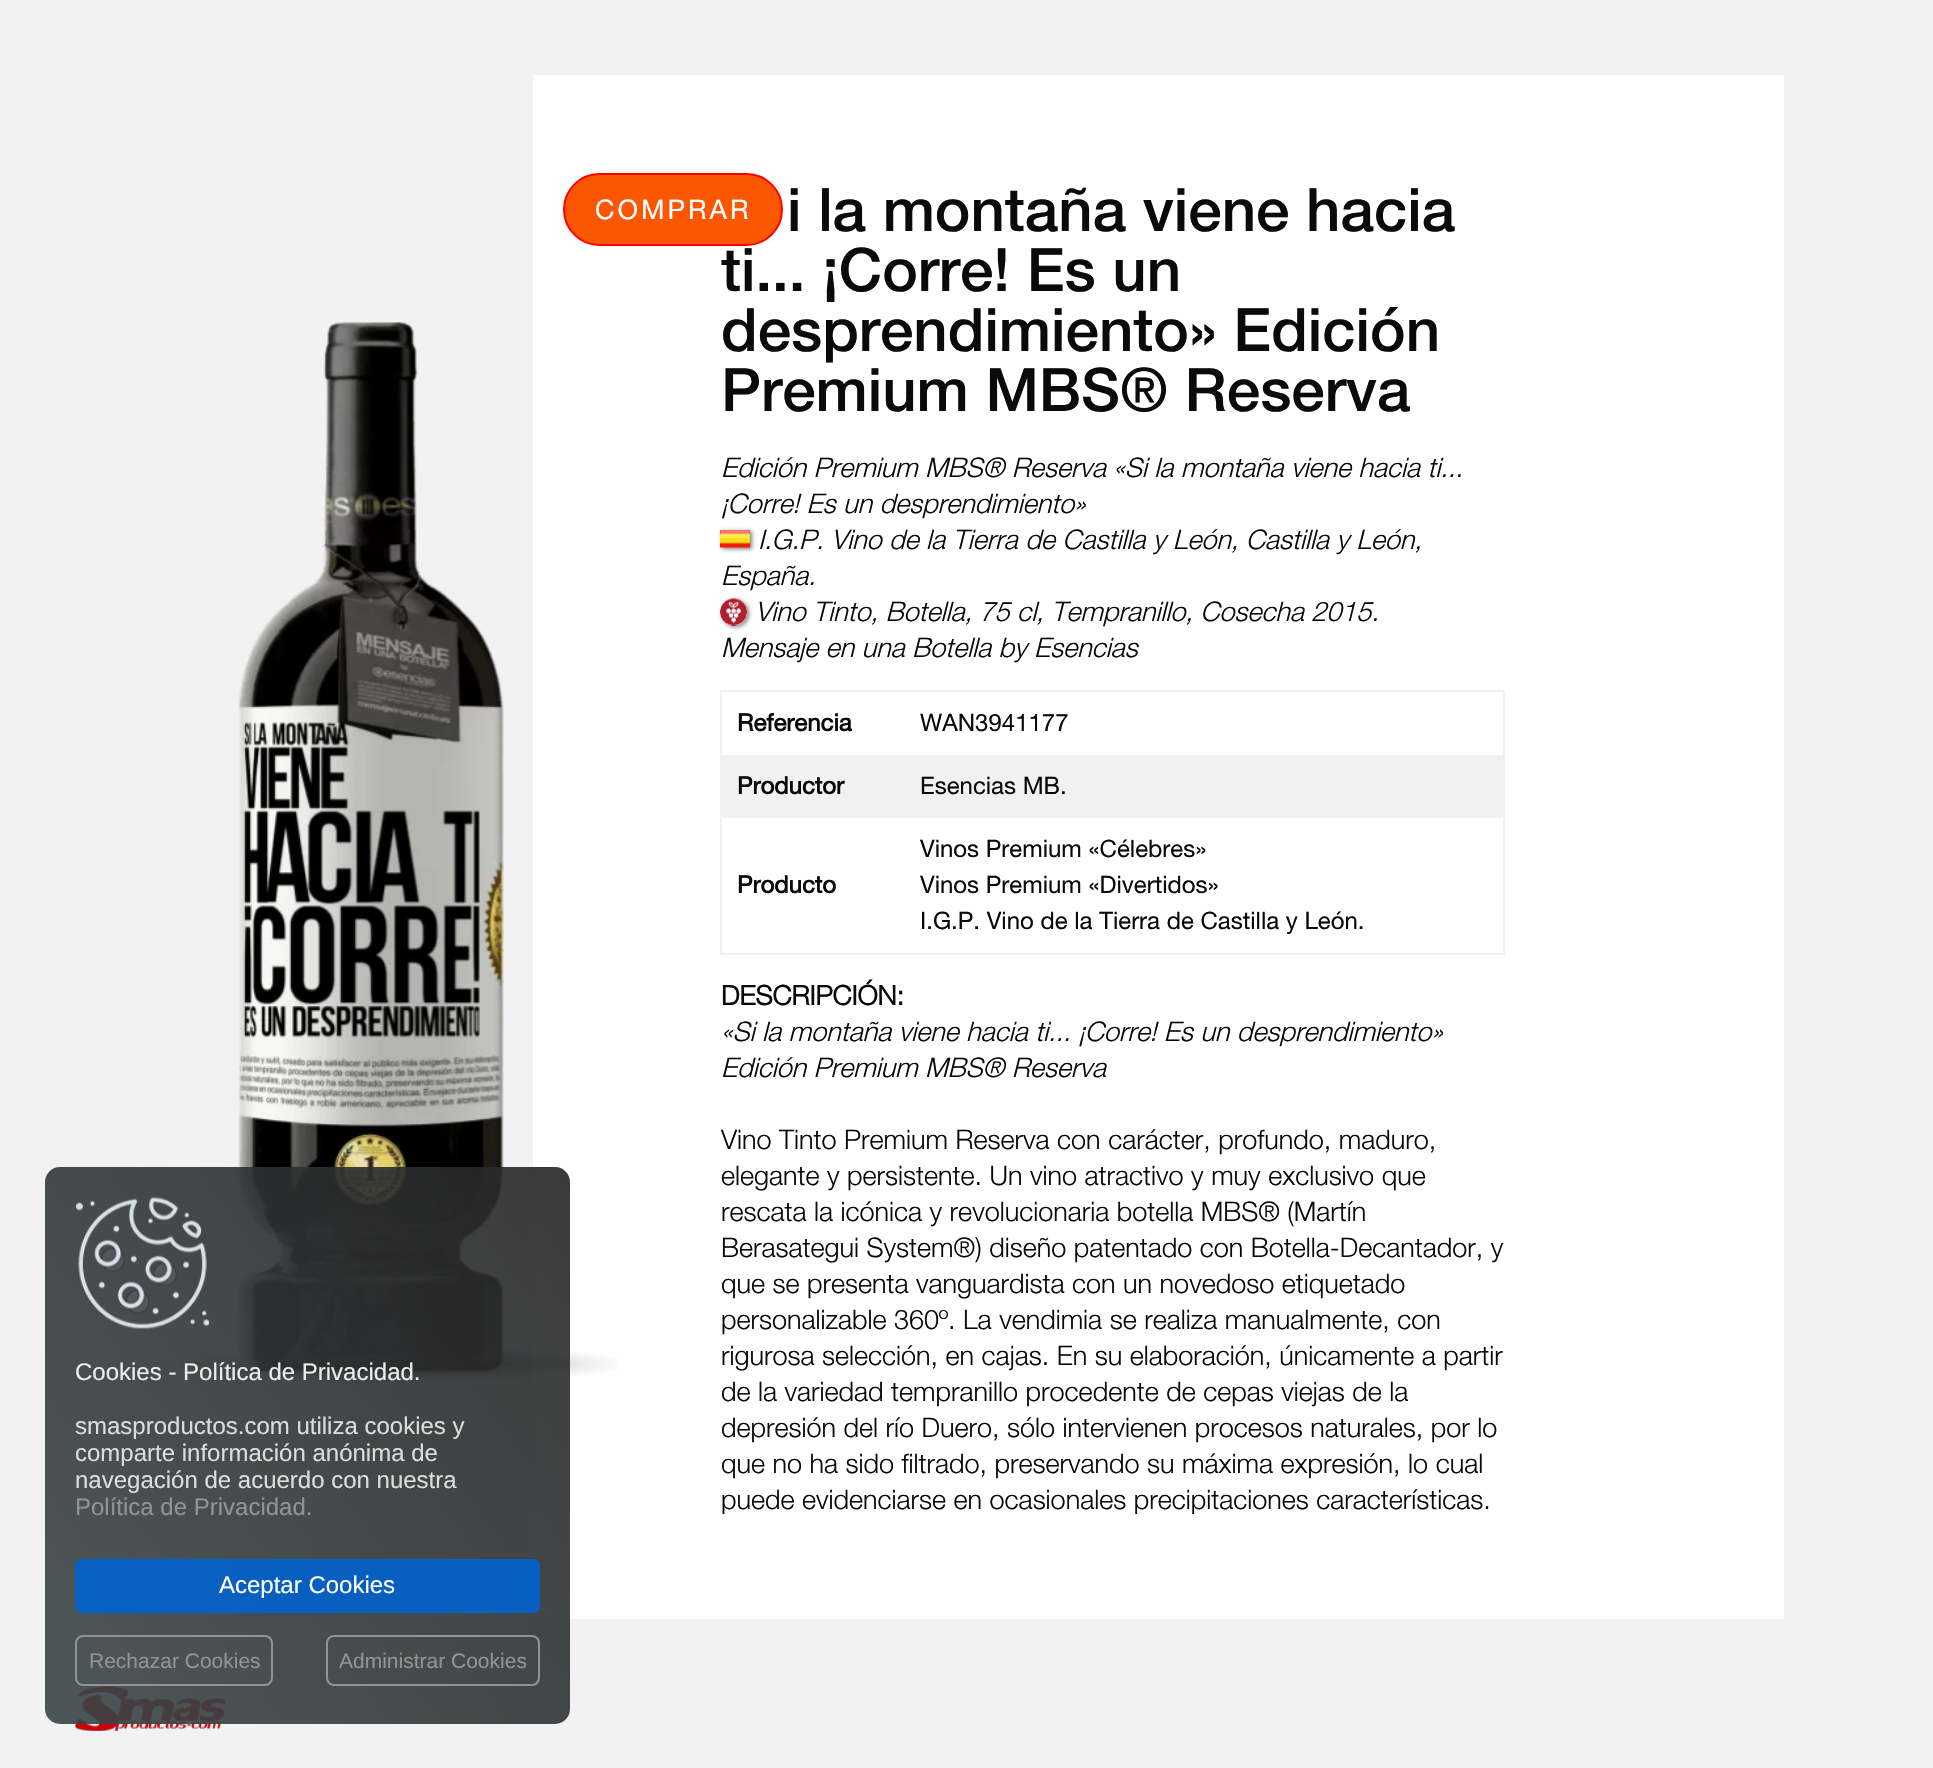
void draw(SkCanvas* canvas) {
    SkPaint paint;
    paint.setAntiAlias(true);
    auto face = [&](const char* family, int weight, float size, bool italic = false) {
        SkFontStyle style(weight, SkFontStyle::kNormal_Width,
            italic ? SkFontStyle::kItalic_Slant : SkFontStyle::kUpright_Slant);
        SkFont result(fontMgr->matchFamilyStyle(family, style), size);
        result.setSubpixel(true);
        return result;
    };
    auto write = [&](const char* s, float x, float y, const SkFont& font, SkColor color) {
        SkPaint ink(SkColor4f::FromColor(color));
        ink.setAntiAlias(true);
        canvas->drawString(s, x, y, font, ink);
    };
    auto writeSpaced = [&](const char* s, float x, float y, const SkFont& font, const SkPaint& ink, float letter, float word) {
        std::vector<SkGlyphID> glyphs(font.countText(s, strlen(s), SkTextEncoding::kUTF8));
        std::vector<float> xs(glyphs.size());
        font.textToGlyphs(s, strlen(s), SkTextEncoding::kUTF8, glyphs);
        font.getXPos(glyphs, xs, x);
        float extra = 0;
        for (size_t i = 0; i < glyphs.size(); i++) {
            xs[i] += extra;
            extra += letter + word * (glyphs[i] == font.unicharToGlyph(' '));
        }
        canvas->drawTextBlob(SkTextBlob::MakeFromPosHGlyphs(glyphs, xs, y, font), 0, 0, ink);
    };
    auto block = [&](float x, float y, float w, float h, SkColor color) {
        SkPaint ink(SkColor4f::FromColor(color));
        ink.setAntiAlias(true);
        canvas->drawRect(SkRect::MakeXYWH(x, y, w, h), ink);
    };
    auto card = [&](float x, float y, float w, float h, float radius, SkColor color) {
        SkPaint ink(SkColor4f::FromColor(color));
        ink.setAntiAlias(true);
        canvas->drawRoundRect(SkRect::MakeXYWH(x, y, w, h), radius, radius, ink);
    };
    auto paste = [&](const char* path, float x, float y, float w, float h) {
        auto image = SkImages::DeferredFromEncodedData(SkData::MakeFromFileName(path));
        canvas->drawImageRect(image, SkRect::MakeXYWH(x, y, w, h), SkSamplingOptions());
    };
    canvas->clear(SkColorSetRGB(242, 242, 242));
    block(533, 75, 1251, 1544, SK_ColorWHITE);
    {
        const SkColor colors[] = {SkColorSetARGB(107, 0, 0, 0), SkColorSetARGB(71, 0, 0, 0), SkColorSetARGB(18, 0, 0, 0), SkColorSetARGB(0, 0, 0, 0)};
        const float stops[] = {0.35f, 0.38f, 0.56f, 0.7f};
        SkMatrix m = SkMatrix::Translate(384, 1364).preScale(356, 29);
        paint.setShader(SkGradientShader::MakeRadial({0, 0}, 1, colors, stops, 4, SkTileMode::kClamp, 0, &m));
        paint.setAlpha(255);
    }
    canvas->drawRect(SkRect::MakeXYWH(150, 1347, 468, 36), paint);
    paste("pic2.png", 238, 322, 266, 1051);
    paste("pic5.png", 75, 1686, 150, 45);
    {
        const SkColor colors[] = {SkColorSetARGB(230, 39, 38, 38), SkColorSetARGB(230, 57, 66, 69)};
        const float stops[] = {0, 0.9f};
        const SkPoint ends[] = {{612, 1224}, {3.4f, 1666}};
        paint.setShader(SkGradientShader::MakeLinear(ends, colors, stops, 2, SkTileMode::kClamp));
        paint.setAlpha(255);
    }
    canvas->drawRoundRect(SkRect::MakeXYWH(45, 1167, 525, 557), 15, 15, paint);
    paste("pic1.png", 75, 1196, 135, 134);
    auto kFont1 = face("Liberation Sans", 400, 24);
    write("Cookies - Política de Privacidad.", 75, 1380, kFont1, SkColorSetRGB(236, 236, 236));
    write("smasproductos.com utiliza cookies y", 75, 1434, kFont1, SkColorSetRGB(220, 220, 220));
    write("comparte información anónima de", 75, 1461, kFont1, SkColorSetRGB(220, 220, 220));
    write("navegación de acuerdo con nuestra", 75, 1488, kFont1, SkColorSetRGB(220, 220, 220));
    write("Política de Privacidad.", 75, 1515, kFont1, SkColorSetRGB(147, 147, 147));
    card(75, 1559, 465, 54, 8, SkColorSetARGB(230, 0, 98, 204));
    paint.setStyle(SkPaint::kStroke_Style);
    paint.setStrokeWidth(2);
    paint.setShader(nullptr);
    paint.setColor(SkColorSetARGB(230, 0, 98, 204));
    canvas->drawRoundRect(SkRect::MakeXYWH(76, 1560, 463, 52), 7, 7, paint);
    write("Aceptar Cookies", 219, 1593, kFont1, SK_ColorWHITE);
    paint.setColor(SkColorSetRGB(147, 147, 147));
    canvas->drawRoundRect(SkRect::MakeXYWH(76, 1636, 196, 49), 7, 7, paint);
    auto kFont2 = face("Liberation Sans", 400, 21);
    write("Rechazar Cookies", 89, 1668, kFont2, SkColorSetRGB(147, 147, 147));
    canvas->drawRoundRect(SkRect::MakeXYWH(327, 1636, 212, 49), 7, 7, paint);
    write("Administrar Cookies", 339, 1668, kFont2, SkColorSetRGB(147, 147, 147));
    auto kFont3 = face("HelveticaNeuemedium", 500, 60);
    write("i la montaña viene hacia", 787, 231, kFont3, SkColorSetRGB(10, 10, 10));
    write("ti... ¡Corre! Es un", 721, 291, kFont3, SkColorSetRGB(10, 10, 10));
    write("desprendimiento» Edición", 721, 351, kFont3, SkColorSetRGB(10, 10, 10));
    write("Premium MBS® Reserva", 721, 411, kFont3, SkColorSetRGB(10, 10, 10));
    paint.setStyle(SkPaint::kFill_Style);
    paint.setColor(SkColorSetRGB(251, 87, 3));
    canvas->drawRoundRect(SkRect::MakeXYWH(564, 174, 218, 71), 35.5f, 35.5f, paint);
    paint.setStyle(SkPaint::kStroke_Style);
    paint.setColor(SkColorSetRGB(255, 0, 0));
    canvas->drawRoundRect(SkRect::MakeXYWH(564, 174, 218, 71), 35.5f, 35.5f, paint);
    auto kFont4 = face("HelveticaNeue", 400, 27);
    paint.setStyle(SkPaint::kFill_Style);
    paint.setColor(SK_ColorWHITE);
    writeSpaced("COMPRAR", 595, 219, kFont4, paint, 3, 0);
    auto kFont5 = face("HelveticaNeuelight", 300, 27, true);
    write("Edición Premium MBS® Reserva «Si la montaña viene hacia ti...", 721, 477, kFont5, SkColorSetRGB(10, 10, 10));
    write("¡Corre! Es un desprendimiento»", 721, 513, kFont5, SkColorSetRGB(10, 10, 10));
    paint.setColor(SkColorSetRGB(128, 128, 128));
    paint.setMaskFilter(SkMaskFilter::MakeBlur(kNormal_SkBlurStyle, 2));
    canvas->drawRect(SkRect::MakeXYWH(722, 531, 30, 18), paint);
    paint.setMaskFilter(nullptr);
    paste("pic3.png", 720, 530, 30, 18);
    write("I.G.P. Vino de la Tierra de Castilla y León, Castilla y León,", 758, 549, kFont5, SkColorSetRGB(10, 10, 10));
    write("España.", 721, 585, kFont5, SkColorSetRGB(10, 10, 10));
    canvas->save();
    canvas->clipPath(SkPathBuilder(SkPathFillType::kEvenOdd).moveTo(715, 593).lineTo(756, 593).lineTo(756, 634).lineTo(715, 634).close().moveTo(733.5f, 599).cubicTo(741, 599, 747, 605, 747, 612.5f).cubicTo(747, 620, 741, 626, 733.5f, 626).cubicTo(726, 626, 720, 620, 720, 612.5f).cubicTo(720, 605, 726, 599, 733.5f, 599).close().detach(), true);
    paint.setMaskFilter(SkMaskFilter::MakeBlur(kNormal_SkBlurStyle, 2));
    canvas->drawRoundRect(SkRect::MakeXYWH(722, 600, 27, 27), 13.5f, 13.5f, paint);
    paint.setMaskFilter(nullptr);
    canvas->restore();
    paste("pic4.png", 720, 598, 27, 28);
    write("Vino Tinto, Botella, 75 cl, Tempranillo, Cosecha 2015.", 755, 621, kFont5, SkColorSetRGB(10, 10, 10));
    write("Mensaje en una Botella by Esencias", 721, 657, kFont5, SkColorSetRGB(10, 10, 10));
    block(720, 690, 785, 2, SkColorSetRGB(241, 241, 241));
    block(1503, 690, 2, 264, SkColorSetRGB(241, 241, 241));
    block(720, 953, 785, 2, SkColorSetRGB(241, 241, 241));
    block(720, 690, 2, 264, SkColorSetRGB(241, 241, 241));
    auto kFont6 = face("HelveticaNeue", 700, 24);
    write("Referencia", 737, 731, kFont6, SkColorSetRGB(10, 10, 10));
    auto kFont7 = face("HelveticaNeue", 400, 24);
    write("WAN3941177", 920, 731, kFont7, SkColorSetRGB(10, 10, 10));
    block(722, 755, 781, 63, SkColorSetRGB(241, 241, 241));
    write("Productor", 737, 794, kFont6, SkColorSetRGB(10, 10, 10));
    write("Esencias MB.", 920, 794, kFont7, SkColorSetRGB(10, 10, 10));
    write("Producto", 737, 893, kFont6, SkColorSetRGB(10, 10, 10));
    write("Vinos Premium «Célebres»", 920, 857, kFont7, SkColorSetRGB(10, 10, 10));
    write("Vinos Premium «Divertidos»", 920, 893, kFont7, SkColorSetRGB(10, 10, 10));
    write("I.G.P. Vino de la Tierra de Castilla y León.", 920, 929, kFont7, SkColorSetRGB(10, 10, 10));
    auto kFont8 = face("HelveticaNeuelight", 700, 27);
    write("DESCRIPCIÓN:", 721, 1005, kFont8, SkColorSetRGB(10, 10, 10));
    write("«Si la montaña viene hacia ti... ¡Corre! Es un desprendimiento»", 721, 1041, kFont5, SkColorSetRGB(10, 10, 10));
    write("Edición Premium MBS® Reserva", 721, 1077, kFont5, SkColorSetRGB(10, 10, 10));
    auto kFont9 = face("HelveticaNeuelight", 300, 27);
    write("Vino Tinto Premium Reserva con carácter, profundo, maduro,", 721, 1149, kFont9, SkColorSetRGB(10, 10, 10));
    write("elegante y persistente. Un vino atractivo y muy exclusivo que", 721, 1185, kFont9, SkColorSetRGB(10, 10, 10));
    write("rescata la icónica y revolucionaria botella MBS® (Martín", 721, 1221, kFont9, SkColorSetRGB(10, 10, 10));
    write("Berasategui System®) diseño patentado con Botella-Decantador, y", 721, 1257, kFont9, SkColorSetRGB(10, 10, 10));
    write("que se presenta vanguardista con un novedoso etiquetado", 721, 1293, kFont9, SkColorSetRGB(10, 10, 10));
    write("personalizable 360º. La vendimia se realiza manualmente, con", 721, 1329, kFont9, SkColorSetRGB(10, 10, 10));
    write("rigurosa selección, en cajas. En su elaboración, únicamente a partir", 721, 1365, kFont9, SkColorSetRGB(10, 10, 10));
    write("de la variedad tempranillo procedente de cepas viejas de la", 721, 1401, kFont9, SkColorSetRGB(10, 10, 10));
    write("depresión del río Duero, sólo intervienen procesos naturales, por lo", 721, 1437, kFont9, SkColorSetRGB(10, 10, 10));
    write("que no ha sido filtrado, preservando su máxima expresión, lo cual", 721, 1473, kFont9, SkColorSetRGB(10, 10, 10));
    canvas->save();
    canvas->clipRect(SkRect::MakeXYWH(720, 150, 1041, 1364));
    write("puede evidenciarse en ocasionales precipitaciones características.", 721, 1509, kFont9, SkColorSetRGB(10, 10, 10));
    canvas->restore();
}
